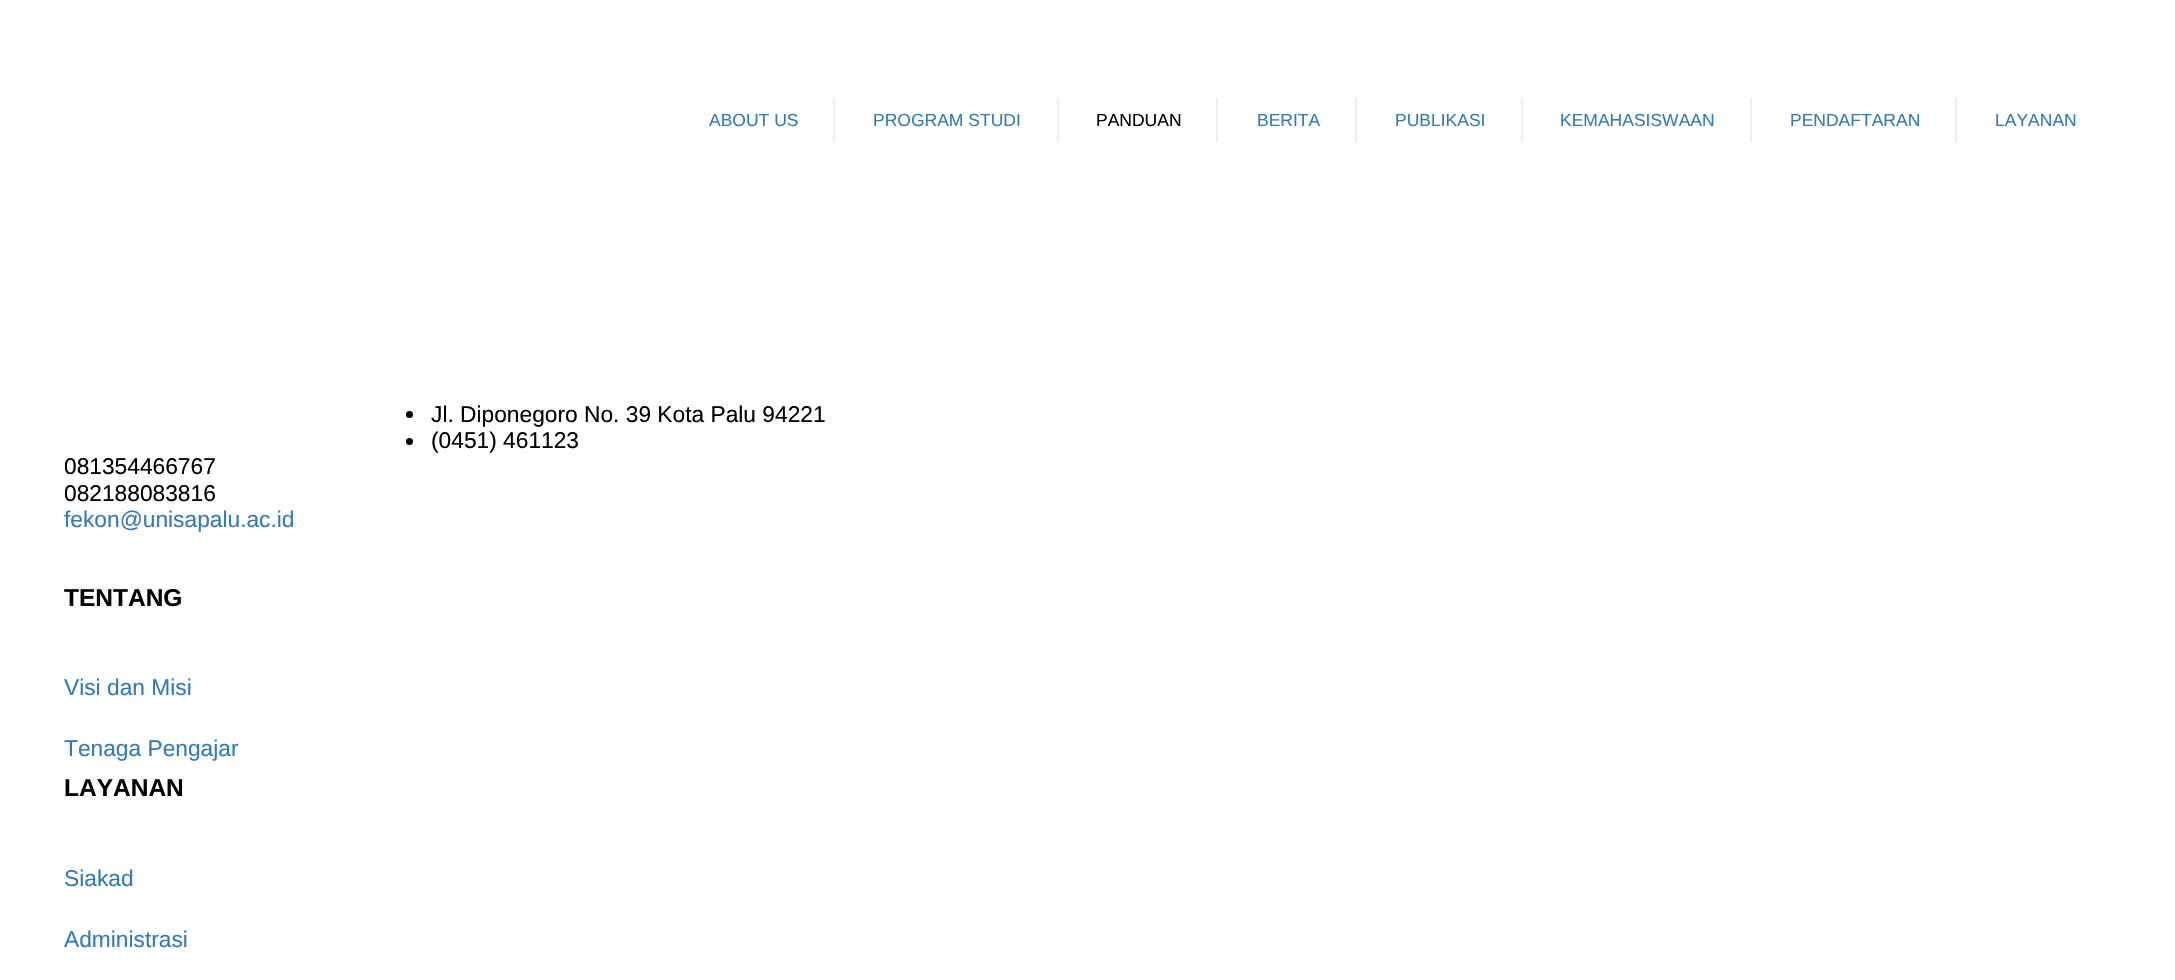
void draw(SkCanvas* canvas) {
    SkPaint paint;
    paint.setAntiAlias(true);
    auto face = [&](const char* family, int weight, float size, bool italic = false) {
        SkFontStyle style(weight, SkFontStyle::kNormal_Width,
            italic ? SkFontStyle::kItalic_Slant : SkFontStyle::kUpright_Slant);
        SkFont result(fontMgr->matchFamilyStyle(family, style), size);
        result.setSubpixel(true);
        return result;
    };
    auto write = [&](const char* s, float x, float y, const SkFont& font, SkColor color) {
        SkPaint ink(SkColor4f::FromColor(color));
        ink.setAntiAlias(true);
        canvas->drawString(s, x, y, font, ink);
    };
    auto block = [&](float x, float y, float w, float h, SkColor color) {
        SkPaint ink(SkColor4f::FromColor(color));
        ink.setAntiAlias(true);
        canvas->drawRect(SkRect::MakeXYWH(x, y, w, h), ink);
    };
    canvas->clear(SK_ColorWHITE);
    auto kFont1 = face("Liberation Sans", 400, 17.5f);
    write("ABOUT US", 709, 126, kFont1, SkColorSetRGB(51, 122, 183));
    block(833, 98, 2, 44, SkColorSetRGB(239, 239, 239));
    write("PROGRAM STUDI", 873, 126, kFont1, SkColorSetRGB(51, 122, 183));
    block(1057, 98, 2, 44, SkColorSetRGB(239, 239, 239));
    write("PANDUAN", 1096, 126, kFont1, SK_ColorBLACK);
    block(1216, 98, 2, 44, SkColorSetRGB(239, 239, 239));
    write("BERITA", 1257, 126, kFont1, SkColorSetRGB(51, 122, 183));
    block(1355, 98, 2, 44, SkColorSetRGB(239, 239, 239));
    write("PUBLIKASI", 1395, 126, kFont1, SkColorSetRGB(51, 122, 183));
    block(1521, 98, 2, 44, SkColorSetRGB(239, 239, 239));
    write("KEMAHASISWAAN", 1560, 126, kFont1, SkColorSetRGB(51, 122, 183));
    block(1750, 98, 2, 44, SkColorSetRGB(239, 239, 239));
    write("PENDAFTARAN", 1790, 126, kFont1, SkColorSetRGB(51, 122, 183));
    block(1955, 98, 2, 44, SkColorSetRGB(239, 239, 239));
    write("LAYANAN", 1995, 126, kFont1, SkColorSetRGB(51, 122, 183));
    paint.setColor(SK_ColorBLACK);
    canvas->drawCircle(409.5f, 414.5f, 3.5f, paint);
    auto kFont2 = face("Liberation Sans", 400, 22.75f);
    write("Jl. Diponegoro No. 39 Kota Palu 94221", 431, 422, kFont2, SK_ColorBLACK);
    canvas->drawCircle(409.5f, 441.5f, 3.5f, paint);
    write("(0451) 461123", 431, 448, kFont2, SK_ColorBLACK);
    canvas->save();
    canvas->clipRect(SkRect::MakeXYWH(65, 401, 2047, 131));
    write("081354466767", 64, 474, kFont2, SK_ColorBLACK);
    write("082188083816", 64, 501, kFont2, SK_ColorBLACK);
    canvas->restore();
    write("fekon@unisapalu.ac.id", 64, 527, kFont2, SkColorSetRGB(51, 122, 183));
    auto kFont3 = face("Liberation Sans", 700, 24.5f);
    write("TENTANG", 64, 606, kFont3, SK_ColorBLACK);
    write("Visi dan Misi", 64, 695, kFont2, SkColorSetRGB(51, 122, 183));
    write("Tenaga Pengajar", 64, 756, kFont2, SkColorSetRGB(51, 122, 183));
    write("LAYANAN", 64, 796, kFont3, SK_ColorBLACK);
    write("Siakad", 64, 886, kFont2, SkColorSetRGB(51, 122, 183));
    write("Administrasi", 64, 947, kFont2, SkColorSetRGB(51, 122, 183));
}
